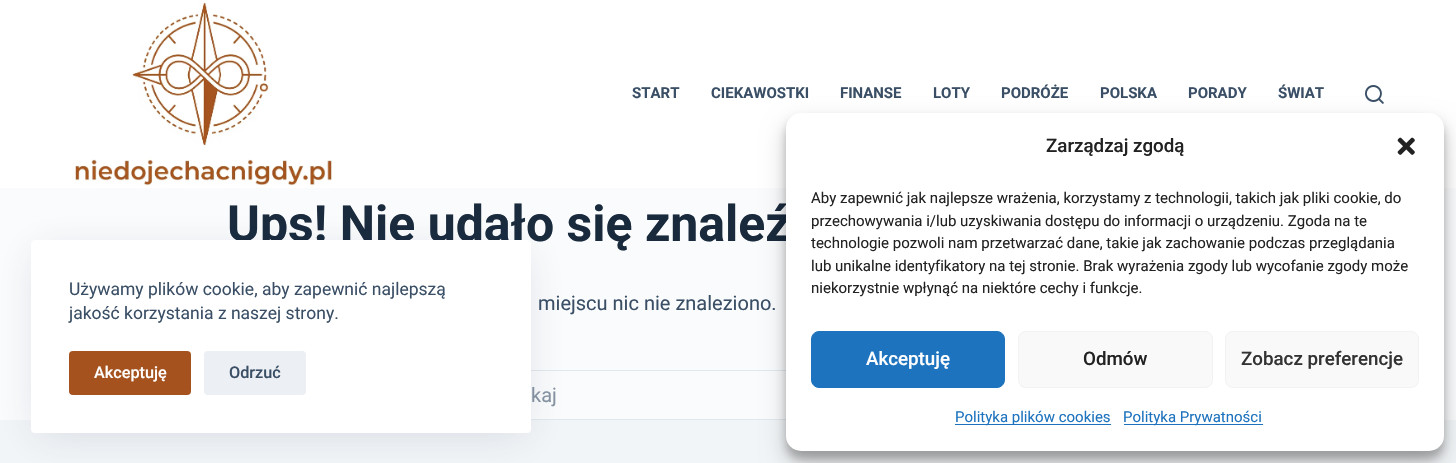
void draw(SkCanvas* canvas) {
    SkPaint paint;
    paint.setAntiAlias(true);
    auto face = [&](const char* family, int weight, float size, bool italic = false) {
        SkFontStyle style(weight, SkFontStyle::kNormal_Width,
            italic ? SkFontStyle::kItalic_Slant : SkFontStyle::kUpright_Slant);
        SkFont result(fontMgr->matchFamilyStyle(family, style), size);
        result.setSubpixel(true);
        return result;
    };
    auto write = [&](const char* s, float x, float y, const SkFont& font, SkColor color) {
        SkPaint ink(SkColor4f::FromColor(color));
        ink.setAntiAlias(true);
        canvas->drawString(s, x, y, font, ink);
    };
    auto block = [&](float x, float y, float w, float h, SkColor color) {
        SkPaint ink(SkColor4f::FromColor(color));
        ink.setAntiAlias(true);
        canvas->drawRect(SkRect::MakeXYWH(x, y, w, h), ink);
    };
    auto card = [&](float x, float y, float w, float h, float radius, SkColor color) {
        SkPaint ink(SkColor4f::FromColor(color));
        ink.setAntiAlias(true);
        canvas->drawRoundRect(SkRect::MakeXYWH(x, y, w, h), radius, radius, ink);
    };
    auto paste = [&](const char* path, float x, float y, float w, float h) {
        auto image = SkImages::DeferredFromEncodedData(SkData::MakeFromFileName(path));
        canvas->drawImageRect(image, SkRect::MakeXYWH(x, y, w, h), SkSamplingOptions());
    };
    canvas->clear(SkColorSetRGB(250, 251, 252));
    block(0, 0, 1456, 188, SK_ColorWHITE);
    paste("pic1.png", 75, 2, 257, 184);
    auto kFont1 = face("Roboto", 700, 15);
    write("START", 632, 98, kFont1, SkColorSetRGB(58, 79, 102));
    write("CIEKAWOSTKI", 711, 98, kFont1, SkColorSetRGB(58, 79, 102));
    write("FINANSE", 840, 98, kFont1, SkColorSetRGB(58, 79, 102));
    write("LOTY", 933, 98, kFont1, SkColorSetRGB(58, 79, 102));
    write("PODRÓŻE", 1001, 98, kFont1, SkColorSetRGB(58, 79, 102));
    write("POLSKA", 1100, 98, kFont1, SkColorSetRGB(58, 79, 102));
    write("PORADY", 1188, 98, kFont1, SkColorSetRGB(58, 79, 102));
    write("ŚWIAT", 1278, 98, kFont1, SkColorSetRGB(58, 79, 102));
    paste("pic2.png", 1365, 85, 19, 19);
    auto kFont2 = face("Roboto", 700, 50);
    write("Ups! Nie udało się znaleź", 227, 241, kFont2, SkColorSetRGB(25, 42, 61));
    auto kFont3 = face("Roboto", 400, 20);
    write("miejscu nic nie znaleziono.", 538, 310, kFont3, SkColorSetRGB(58, 79, 102));
    paint.setColor(SkColorSetRGB(225, 232, 237));
    canvas->drawPath(SkPathBuilder(SkPathFillType::kEvenOdd).moveTo(482, 370).lineTo(929, 370).lineTo(929, 420).lineTo(482, 420).cubicTo(480, 420, 479, 418, 479, 416).lineTo(479, 374).cubicTo(479, 372, 480, 370, 482, 370).close().moveTo(482, 371).lineTo(929, 371).lineTo(929, 419).lineTo(482, 419).cubicTo(481, 419, 480, 418, 480, 416).lineTo(480, 374).cubicTo(480, 372, 481, 371, 482, 371).close().detach(), paint);
    write("kaj", 531, 402, kFont3, SkColorSetRGB(135, 148, 162));
    block(0, 420, 1456, 43, SkColorSetRGB(242, 245, 247));
    paint.setColor(SkColorSetARGB(38, 34, 56, 101));
    paint.setMaskFilter(SkMaskFilter::MakeBlur(kNormal_SkBlurStyle, 19));
    canvas->drawRect(SkRect::MakeXYWH(38, 253, 487, 180), paint);
    paint.setMaskFilter(nullptr);
    card(31, 240, 500, 193, 4, SK_ColorWHITE);
    auto kFont4 = face("Roboto", 400, 17.5f);
    write("Używamy plików cookie, aby zapewnić najlepszą", 69, 295, kFont4, SkColorSetRGB(58, 79, 102));
    write("jakość korzystania z naszej strony.", 69, 319, kFont4, SkColorSetRGB(58, 79, 102));
    card(69, 351, 122, 44, 4, SkColorSetRGB(165, 82, 31));
    auto kFont5 = face("Roboto", 500, 16.25f);
    write("Akceptuję", 94, 378, kFont5, SK_ColorWHITE);
    card(204, 351, 102, 44, 4, SkColorSetRGB(236, 239, 243));
    write("Odrzuć", 229, 378, kFont5, SkColorSetRGB(58, 79, 102));
    paint.setColor(SkColorSetARGB(59, 0, 0, 0));
    paint.setMaskFilter(SkMaskFilter::MakeBlur(kNormal_SkBlurStyle, 4));
    canvas->drawRoundRect(SkRect::MakeXYWH(786, 120, 658, 339), 15, 15, paint);
    paint.setMaskFilter(nullptr);
    paint.setColor(SkColorSetARGB(48, 0, 0, 0));
    paint.setMaskFilter(SkMaskFilter::MakeBlur(kNormal_SkBlurStyle, 12.5f));
    canvas->drawRoundRect(SkRect::MakeXYWH(786, 125, 658, 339), 15, 15, paint);
    paint.setMaskFilter(nullptr);
    card(786, 113, 658, 338, 15, SK_ColorWHITE);
    auto kFont6 = face("Roboto", 500, 18.75f);
    write("Zarządzaj zgodą", 1046, 152, kFont6, SkColorSetRGB(34, 34, 34));
    paste("pic3.png", 1397, 137, 18, 18);
    auto kFont7 = face("Roboto", 400, 15);
    write("Aby zapewnić jak najlepsze wrażenia, korzystamy z technologii, takich jak pliki cookie, do", 811, 203, kFont7, SkColorSetRGB(34, 34, 34));
    write("przechowywania i/lub uzyskiwania dostępu do informacji o urządzeniu. Zgoda na te", 811, 226, kFont7, SkColorSetRGB(34, 34, 34));
    write("technologie pozwoli nam przetwarzać dane, takie jak zachowanie podczas przeglądania", 811, 248, kFont7, SkColorSetRGB(34, 34, 34));
    write("lub unikalne identyfikatory na tej stronie. Brak wyrażenia zgody lub wycofanie zgody może", 811, 271, kFont7, SkColorSetRGB(34, 34, 34));
    write("niekorzystnie wpłynąć na niektóre cechy i funkcje.", 811, 293, kFont7, SkColorSetRGB(34, 34, 34));
    paint.setColor(SkColorSetRGB(30, 115, 190));
    canvas->drawRoundRect(SkRect::MakeXYWH(811.5f, 331.5f, 193, 56), 7.5f, 7.5f, paint);
    paint.setStyle(SkPaint::kStroke_Style);
    paint.setStrokeWidth(1);
    canvas->drawRoundRect(SkRect::MakeXYWH(811.5f, 331.5f, 193, 56), 7.5f, 7.5f, paint);
    write("Akceptuję", 866, 365, kFont6, SK_ColorWHITE);
    paint.setStyle(SkPaint::kFill_Style);
    paint.setColor(SkColorSetRGB(249, 249, 249));
    canvas->drawRoundRect(SkRect::MakeXYWH(1018.5f, 331.5f, 194, 56), 7.5f, 7.5f, paint);
    paint.setStyle(SkPaint::kStroke_Style);
    paint.setColor(SkColorSetRGB(242, 242, 242));
    canvas->drawRoundRect(SkRect::MakeXYWH(1018.5f, 331.5f, 194, 56), 7.5f, 7.5f, paint);
    write("Odmów", 1083, 365, kFont6, SkColorSetRGB(34, 34, 34));
    paint.setStyle(SkPaint::kFill_Style);
    paint.setColor(SkColorSetRGB(249, 249, 249));
    canvas->drawRoundRect(SkRect::MakeXYWH(1225.5f, 331.5f, 193, 56), 7.5f, 7.5f, paint);
    paint.setStyle(SkPaint::kStroke_Style);
    paint.setColor(SkColorSetRGB(242, 242, 242));
    canvas->drawRoundRect(SkRect::MakeXYWH(1225.5f, 331.5f, 193, 56), 7.5f, 7.5f, paint);
    write("Zobacz preferencje", 1241, 365, kFont6, SkColorSetRGB(51, 51, 51));
    block(955, 424, 156, 1, SkColorSetRGB(30, 115, 190));
    write("Polityka plików cookies", 955, 422, kFont7, SkColorSetRGB(30, 115, 190));
    block(1124, 424, 139, 1, SkColorSetRGB(30, 115, 190));
    write("Polityka Prywatności", 1123, 422, kFont7, SkColorSetRGB(30, 115, 190));
}
